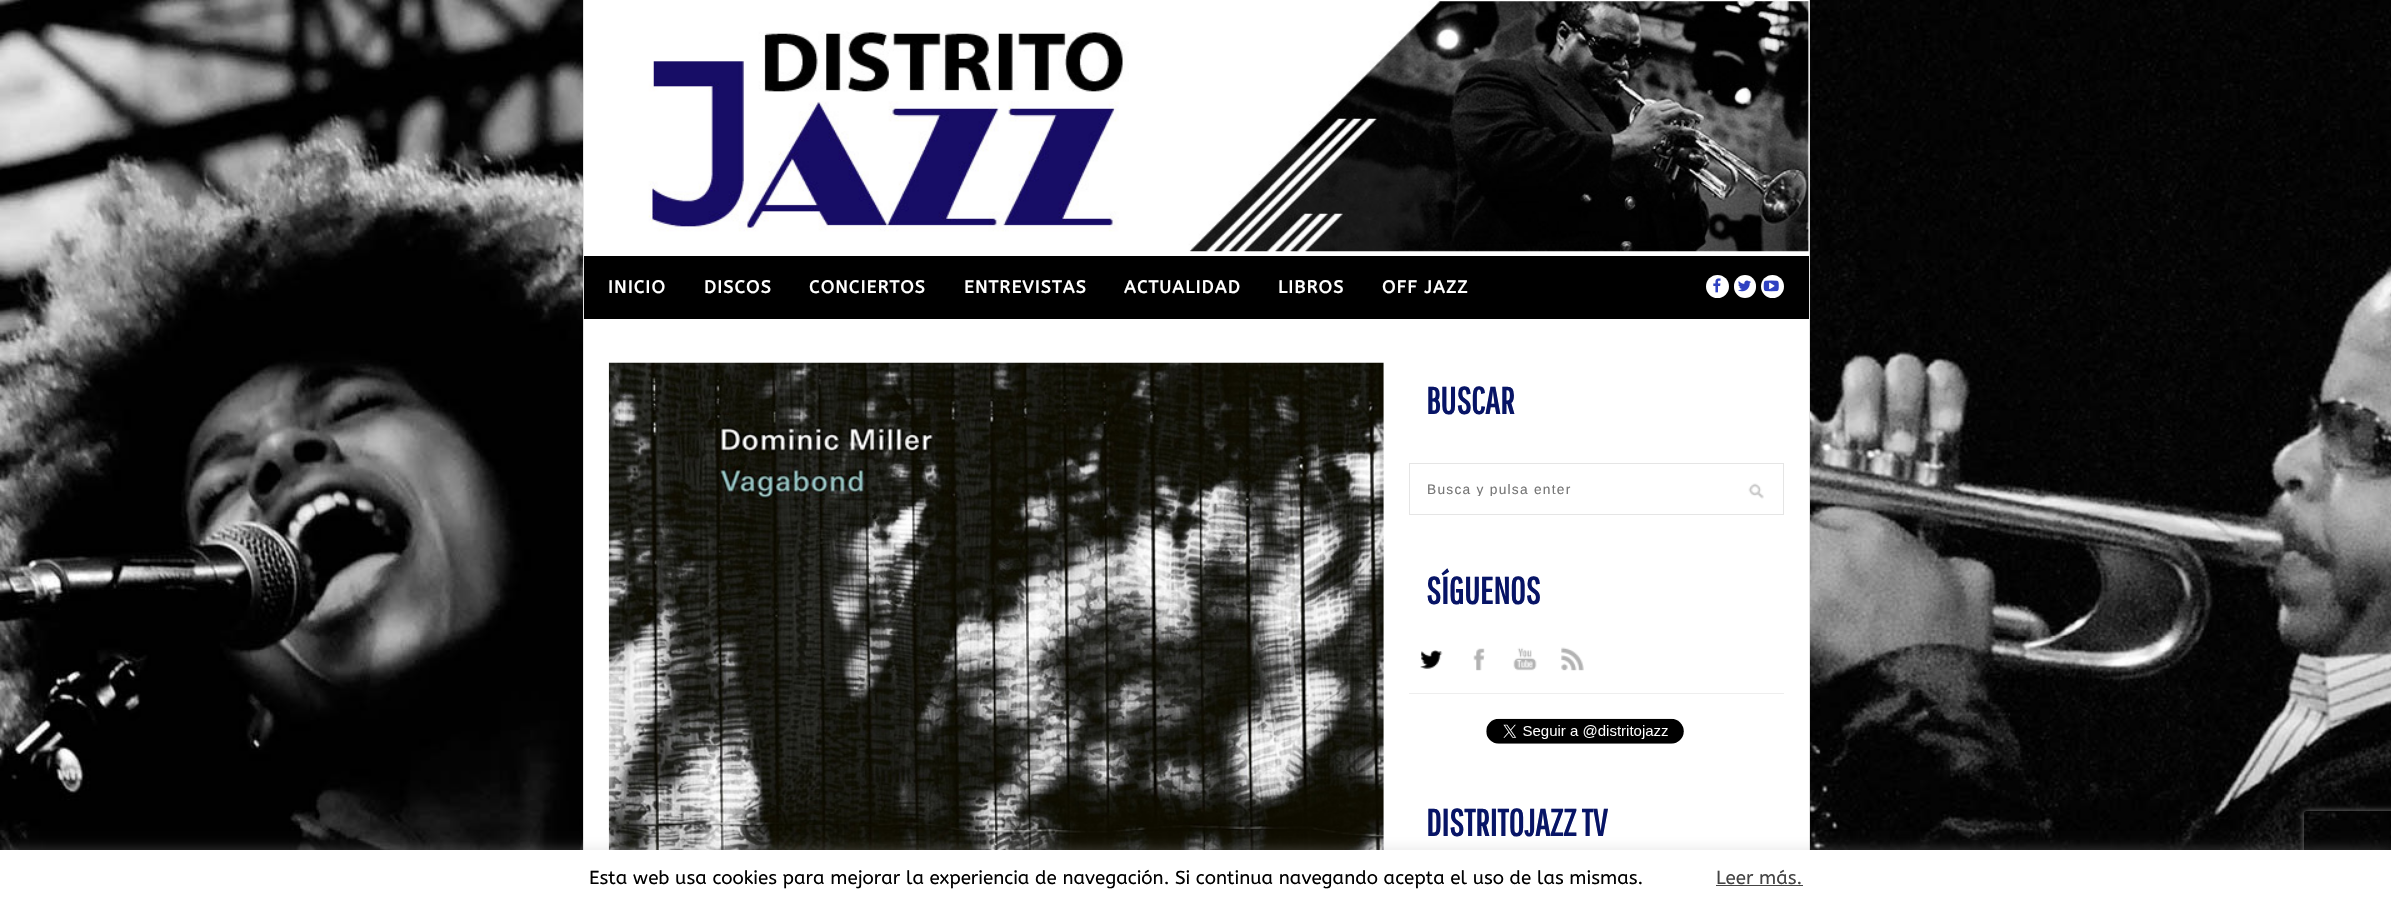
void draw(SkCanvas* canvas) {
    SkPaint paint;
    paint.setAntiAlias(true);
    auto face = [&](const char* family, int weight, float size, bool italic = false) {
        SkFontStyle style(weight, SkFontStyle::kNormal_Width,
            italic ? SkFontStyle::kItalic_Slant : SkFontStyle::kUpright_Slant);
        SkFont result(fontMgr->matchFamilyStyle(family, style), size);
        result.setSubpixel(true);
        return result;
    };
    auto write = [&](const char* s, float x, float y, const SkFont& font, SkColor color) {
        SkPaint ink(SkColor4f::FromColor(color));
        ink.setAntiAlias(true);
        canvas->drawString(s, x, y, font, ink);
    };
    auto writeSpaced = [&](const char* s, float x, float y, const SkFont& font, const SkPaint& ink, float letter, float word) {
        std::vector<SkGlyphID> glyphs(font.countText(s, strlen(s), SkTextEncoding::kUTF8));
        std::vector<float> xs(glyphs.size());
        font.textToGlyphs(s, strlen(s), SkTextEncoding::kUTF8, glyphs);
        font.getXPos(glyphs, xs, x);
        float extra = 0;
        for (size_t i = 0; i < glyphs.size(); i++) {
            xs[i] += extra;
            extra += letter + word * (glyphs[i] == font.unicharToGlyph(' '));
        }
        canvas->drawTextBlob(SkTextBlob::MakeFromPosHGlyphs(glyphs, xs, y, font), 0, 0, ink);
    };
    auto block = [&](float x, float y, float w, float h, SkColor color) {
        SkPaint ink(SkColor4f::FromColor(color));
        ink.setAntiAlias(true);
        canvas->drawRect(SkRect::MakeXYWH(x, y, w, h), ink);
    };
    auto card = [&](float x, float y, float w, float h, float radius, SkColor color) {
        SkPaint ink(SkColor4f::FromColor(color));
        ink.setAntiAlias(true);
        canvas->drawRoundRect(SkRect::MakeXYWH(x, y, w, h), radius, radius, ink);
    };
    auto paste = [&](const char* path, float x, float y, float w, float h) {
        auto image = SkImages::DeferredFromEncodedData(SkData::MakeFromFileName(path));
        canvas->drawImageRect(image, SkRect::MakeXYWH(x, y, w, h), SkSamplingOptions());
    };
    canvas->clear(SK_ColorWHITE);
    paste("pic1.png", 0, 0, 2391, 850);
    block(584, 0, 1225, 850, SK_ColorWHITE);
    block(1809, 0, 1, 850, SkColorSetRGB(229, 229, 229));
    block(583, 0, 1, 850, SkColorSetRGB(229, 229, 229));
    paste("pic2.png", 648, 1, 1161, 251);
    block(584, 256, 1225, 63, SK_ColorBLACK);
    auto kFont1 = face("ABeeZee", 700, 17.5f);
    paint.setColor(SK_ColorWHITE);
    writeSpaced("INICIO", 608, 293, kFont1, paint, 1.25f, 0);
    writeSpaced("DISCOS", 704, 293, kFont1, paint, 1.25f, 0);
    writeSpaced("CONCIERTOS", 809, 293, kFont1, paint, 1.25f, 0);
    writeSpaced("ENTREVISTAS", 964, 293, kFont1, paint, 1.25f, 0);
    writeSpaced("ACTUALIDAD", 1124, 293, kFont1, paint, 1.25f, 0);
    writeSpaced("LIBROS", 1278, 293, kFont1, paint, 1.25f, 0);
    writeSpaced("OFF JAZZ", 1382, 293, kFont1, paint, 1.25f, 0);
    canvas->drawCircle(1717.5f, 286.5f, 11.5f, paint);
    paste("pic3.png", 1713, 278, 8, 15);
    card(1734, 275, 22, 23, 11, SK_ColorWHITE);
    paste("pic4.png", 1738, 280, 13, 12);
    canvas->drawCircle(1772.5f, 286.5f, 11.5f, paint);
    paste("pic5.png", 1763, 280, 16, 12);
    paste("pic6.png", 608, 362, 776, 488);
    auto kFont2 = face("Pathway Gothic One", 700, 37.5f);
    write("BUSCAR", 1426, 414, kFont2, SkColorSetRGB(7, 20, 102));
    paste("pic7.png", 1748, 483, 16, 16);
    paint.setStyle(SkPaint::kStroke_Style);
    paint.setStrokeWidth(1);
    paint.setColor(SkColorSetRGB(229, 229, 229));
    canvas->drawRect(SkRect::MakeXYWH(1409.5f, 463.5f, 374, 51), paint);
    canvas->save();
    canvas->clipRect(SkRect::MakeXYWH(1428, 481, 337, 15));
    auto kFont3 = face("Liberation Sans", 400, 13.75f);
    paint.setStyle(SkPaint::kFill_Style);
    paint.setColor(SkColorSetRGB(117, 117, 117));
    writeSpaced("Busca y pulsa enter", 1427, 494, kFont3, paint, 1.25f, 0);
    canvas->restore();
    write("SÍGUENOS", 1426, 604, kFont2, SkColorSetRGB(7, 20, 102));
    block(1409, 693, 375, 1, SkColorSetRGB(238, 238, 238));
    paste("pic8.png", 1420, 650, 23, 19);
    paste("pic9.png", 1473, 648, 12, 23);
    paste("pic10.png", 1513, 647, 24, 24);
    paste("pic11.png", 1561, 647, 23, 24);
    paste("pic12.png", 1486, 718, 198, 26);
    write("DISTRITOJAZZ TV", 1426, 836, kFont2, SkColorSetRGB(7, 20, 102));
    paint.setColor(SkColorSetARGB(77, 172, 171, 171));
    paint.setMaskFilter(SkMaskFilter::MakeBlur(kNormal_SkBlurStyle, 6));
    canvas->drawRect(SkRect::MakeXYWH(0, 849, 2391, 54), paint);
    paint.setMaskFilter(nullptr);
    canvas->save();
    canvas->clipPath(SkPathBuilder(SkPathFillType::kEvenOdd).moveTo(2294, 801).lineTo(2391, 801).lineTo(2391, 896).lineTo(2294, 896).close().moveTo(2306.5f, 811).lineTo(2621.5f, 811).cubicTo(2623, 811, 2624, 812, 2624, 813.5f).lineTo(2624, 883.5f).cubicTo(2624, 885, 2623, 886, 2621.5f, 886).lineTo(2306.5f, 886).cubicTo(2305, 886, 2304, 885, 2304, 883.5f).lineTo(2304, 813.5f).cubicTo(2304, 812, 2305, 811, 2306.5f, 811).close().detach(), true);
    paint.setColor(SkColorSetRGB(128, 128, 128));
    paint.setMaskFilter(SkMaskFilter::MakeBlur(kNormal_SkBlurStyle, 3));
    canvas->drawRoundRect(SkRect::MakeXYWH(2304, 811, 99, 75), 2.5f, 2.5f, paint);
    paint.setMaskFilter(nullptr);
    canvas->restore();
    block(0, 850, 2391, 53, SK_ColorWHITE);
    auto kFont4 = face("ABeeZee", 400, 18.75f);
    write("Esta web usa cookies para mejorar la experiencia de navegación. Si continua navegando acepta el uso de las mismas.", 589, 884, kFont4, SK_ColorBLACK);
    write("Leer más.", 1716, 884, kFont4, SkColorSetRGB(68, 68, 68));
    block(1716, 885, 87, 1, SkColorSetRGB(68, 68, 68));
}
